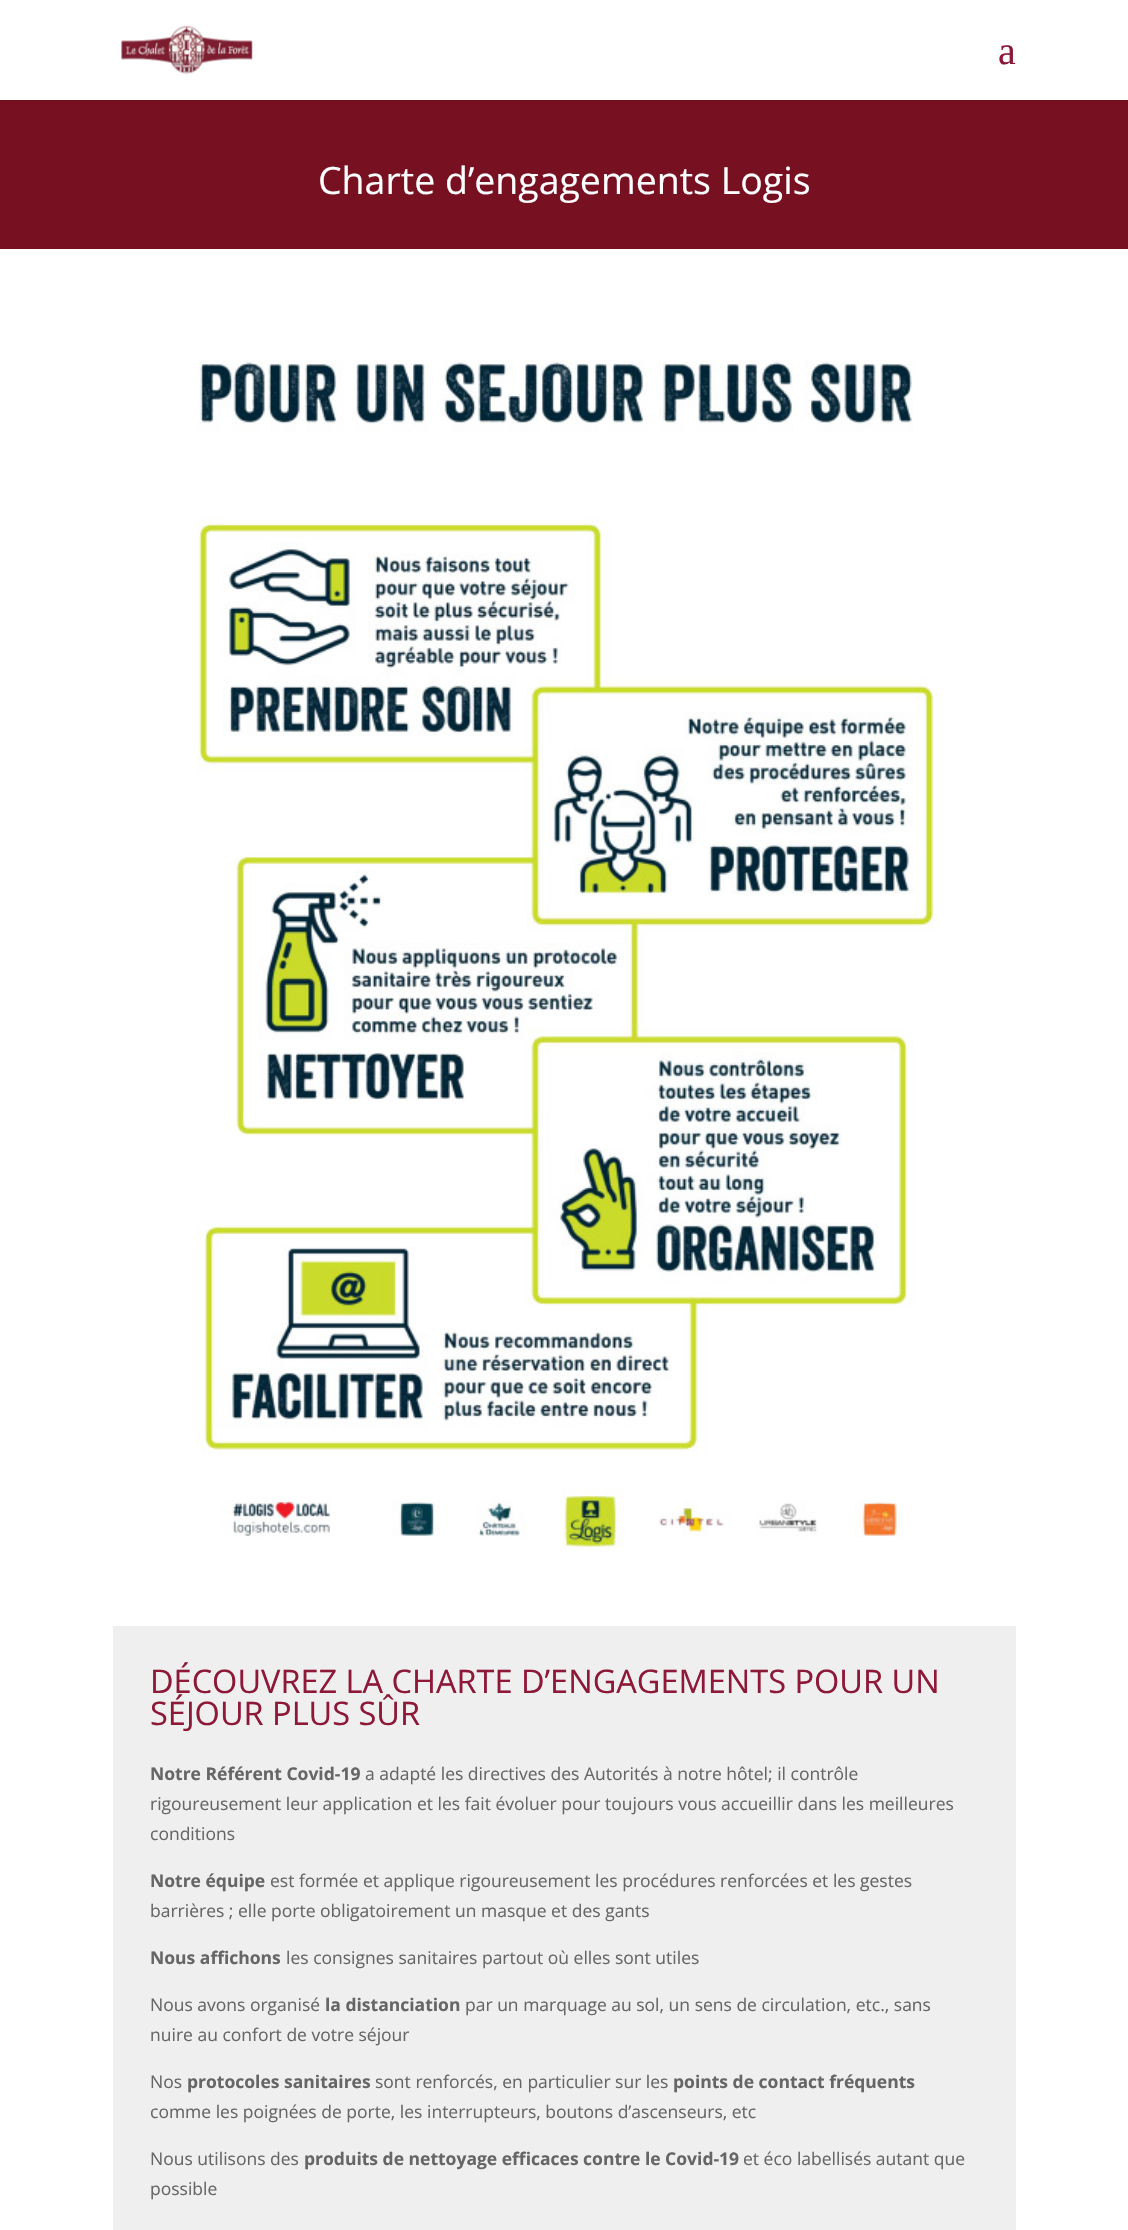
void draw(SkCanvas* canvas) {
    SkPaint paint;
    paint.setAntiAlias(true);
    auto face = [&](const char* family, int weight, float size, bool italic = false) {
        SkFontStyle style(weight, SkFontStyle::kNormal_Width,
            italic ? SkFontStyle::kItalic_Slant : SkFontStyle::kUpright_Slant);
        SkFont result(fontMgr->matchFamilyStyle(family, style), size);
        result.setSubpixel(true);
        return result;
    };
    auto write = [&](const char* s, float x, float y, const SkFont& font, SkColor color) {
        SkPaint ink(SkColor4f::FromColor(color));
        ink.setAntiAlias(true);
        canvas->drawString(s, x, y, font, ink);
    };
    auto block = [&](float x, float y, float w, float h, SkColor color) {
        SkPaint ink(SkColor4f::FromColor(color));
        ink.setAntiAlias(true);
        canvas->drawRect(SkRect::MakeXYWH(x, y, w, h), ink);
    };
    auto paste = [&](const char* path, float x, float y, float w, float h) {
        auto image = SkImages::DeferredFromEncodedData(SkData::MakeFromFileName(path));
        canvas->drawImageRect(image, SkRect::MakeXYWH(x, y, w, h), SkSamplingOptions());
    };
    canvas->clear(SK_ColorWHITE);
    paint.setColor(SkColorSetRGB(107, 14, 30));
    canvas->drawPath(SkPathBuilder().moveTo(0, 100).lineTo(0, 101).lineTo(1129, 101).lineTo(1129, 1).lineTo(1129, 100).close().detach(), paint);
    paste("pic1.png", 121, 25, 132, 50);
    auto kFont1 = face("Liberation Serif", 400, 40);
    write("a", 998, 64, kFont1, SkColorSetRGB(141, 24, 56));
    block(0, 101, 1128, 148, SkColorSetRGB(119, 16, 33));
    auto kFont2 = face("Open Sans", 400, 37.5f);
    write("Charte d’engagements Logis", 318, 194, kFont2, SK_ColorWHITE);
    paste("pic2.png", 197, 360, 742, 1190);
    block(113, 1626, 903, 604, SkColorSetRGB(239, 239, 239));
    auto kFont3 = face("Open Sans", 400, 32.5f);
    write("DÉCOUVREZ LA CHARTE D’ENGAGEMENTS POUR UN", 150, 1693, kFont3, SkColorSetRGB(141, 24, 56));
    write("SÉJOUR PLUS SÛR", 150, 1725, kFont3, SkColorSetRGB(141, 24, 56));
    auto kFont4 = face("Open Sans", 700, 17.5f);
    write("Notre Référent Covid-19", 150, 1780, kFont4, SkColorSetRGB(102, 102, 102));
    auto kFont5 = face("Open Sans", 400, 17.5f);
    write("a adapté les directives des Autorités à notre hôtel; il contrôle", 365, 1780, kFont5, SkColorSetRGB(102, 102, 102));
    write("rigoureusement leur application et les fait évoluer pour toujours vous accueillir dans les meilleures", 150, 1810, kFont5, SkColorSetRGB(102, 102, 102));
    write("conditions", 150, 1840, kFont5, SkColorSetRGB(102, 102, 102));
    write("Notre équipe", 150, 1887, kFont4, SkColorSetRGB(102, 102, 102));
    write("est formée et applique rigoureusement les procédures renforcées et les gestes", 270, 1887, kFont5, SkColorSetRGB(102, 102, 102));
    write("barrières ; elle porte obligatoirement un masque et des gants", 150, 1917, kFont5, SkColorSetRGB(102, 102, 102));
    write("Nous affichons", 150, 1964, kFont4, SkColorSetRGB(102, 102, 102));
    write("les consignes sanitaires partout où elles sont utiles", 286, 1964, kFont5, SkColorSetRGB(102, 102, 102));
    write("Nous avons organisé", 150, 2011, kFont5, SkColorSetRGB(102, 102, 102));
    write("la distanciation", 325, 2011, kFont4, SkColorSetRGB(102, 102, 102));
    write("par un marquage au sol, un sens de circulation, etc., sans", 465, 2011, kFont5, SkColorSetRGB(102, 102, 102));
    write("nuire au confort de votre séjour", 150, 2041, kFont5, SkColorSetRGB(102, 102, 102));
    write("Nos", 150, 2088, kFont5, SkColorSetRGB(102, 102, 102));
    write("protocoles sanitaires", 187, 2088, kFont4, SkColorSetRGB(102, 102, 102));
    write("sont renforcés, en particulier sur les", 375, 2088, kFont5, SkColorSetRGB(102, 102, 102));
    write("points de contact fréquents", 673, 2088, kFont4, SkColorSetRGB(102, 102, 102));
    write("comme les poignées de porte, les interrupteurs, boutons d’ascenseurs, etc", 150, 2118, kFont5, SkColorSetRGB(102, 102, 102));
    write("Nous utilisons des", 150, 2165, kFont5, SkColorSetRGB(102, 102, 102));
    write("produits de nettoyage efficaces contre le Covid-19", 304, 2165, kFont4, SkColorSetRGB(102, 102, 102));
    write("et éco labellisés autant que", 743, 2165, kFont5, SkColorSetRGB(102, 102, 102));
    write("possible", 150, 2195, kFont5, SkColorSetRGB(102, 102, 102));
}
